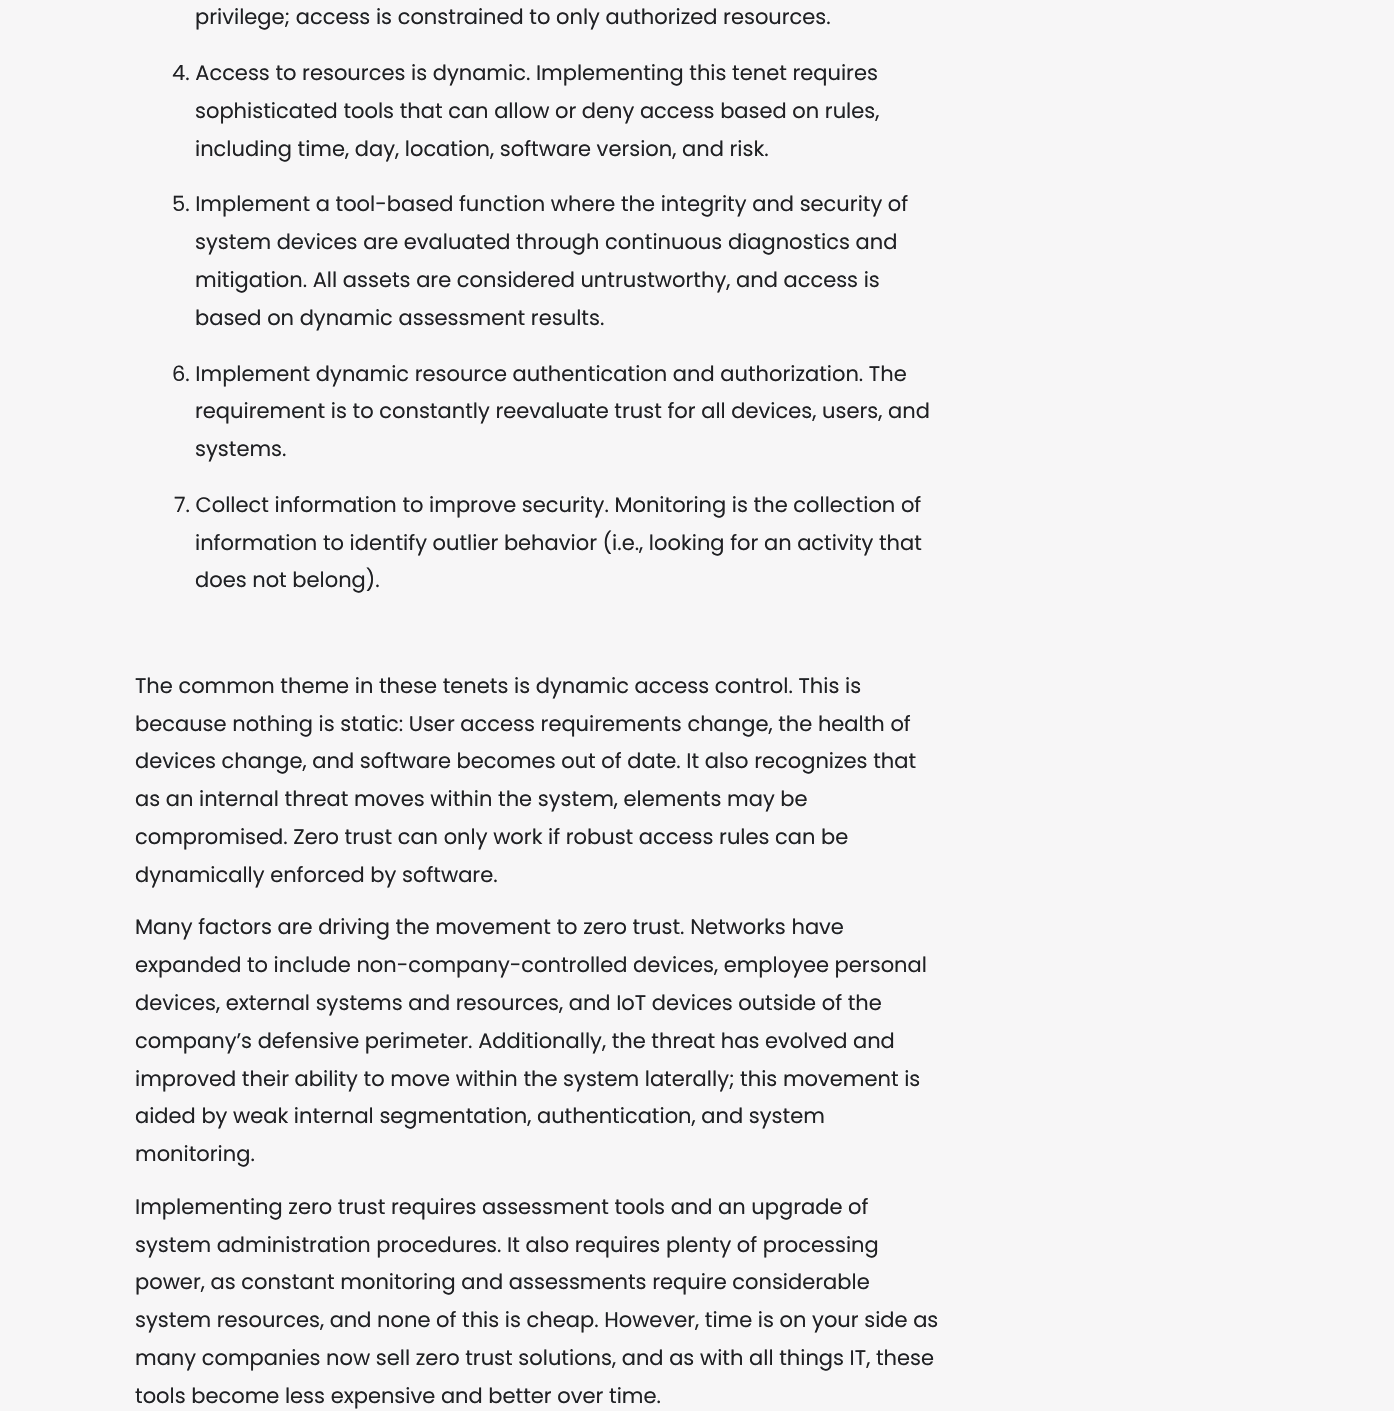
void draw(SkCanvas* canvas) {
    SkPaint paint;
    paint.setAntiAlias(true);
    auto face = [&](const char* family, int weight, float size, bool italic = false) {
        SkFontStyle style(weight, SkFontStyle::kNormal_Width,
            italic ? SkFontStyle::kItalic_Slant : SkFontStyle::kUpright_Slant);
        SkFont result(fontMgr->matchFamilyStyle(family, style), size);
        result.setSubpixel(true);
        return result;
    };
    auto write = [&](const char* s, float x, float y, const SkFont& font, SkColor color) {
        SkPaint ink(SkColor4f::FromColor(color));
        ink.setAntiAlias(true);
        canvas->drawString(s, x, y, font, ink);
    };
    canvas->clear(SkColorSetRGB(247, 246, 247));
    auto kFont1 = face("Poppins", 400, 21);
    write("privilege; access is constrained to only authorized resources.", 195, 24, kFont1, SkColorSetRGB(32, 33, 36));
    write("4. Access to resources is dynamic. Implementing this tenet requires", 172, 80, kFont1, SkColorSetRGB(32, 33, 36));
    write("sophisticated tools that can allow or deny access based on rules,", 195, 118, kFont1, SkColorSetRGB(32, 33, 36));
    write("including time, day, location, software version, and risk.", 195, 156, kFont1, SkColorSetRGB(32, 33, 36));
    write("5. Implement a tool-based function where the integrity and security of", 172, 211, kFont1, SkColorSetRGB(32, 33, 36));
    write("system devices are evaluated through continuous diagnostics and", 195, 249, kFont1, SkColorSetRGB(32, 33, 36));
    write("mitigation. All assets are considered untrustworthy, and access is", 195, 287, kFont1, SkColorSetRGB(32, 33, 36));
    write("based on dynamic assessment results.", 195, 325, kFont1, SkColorSetRGB(32, 33, 36));
    write("6. Implement dynamic resource authentication and authorization. The", 172, 381, kFont1, SkColorSetRGB(32, 33, 36));
    write("requirement is to constantly reevaluate trust for all devices, users, and", 195, 418, kFont1, SkColorSetRGB(32, 33, 36));
    write("systems.", 195, 456, kFont1, SkColorSetRGB(32, 33, 36));
    write("7. Collect information to improve security. Monitoring is the collection of", 174, 512, kFont1, SkColorSetRGB(32, 33, 36));
    write("information to identify outlier behavior (i.e., looking for an activity that", 195, 550, kFont1, SkColorSetRGB(32, 33, 36));
    write("does not belong).", 195, 587, kFont1, SkColorSetRGB(32, 33, 36));
    write("The common theme in these tenets is dynamic access control. This is", 135, 693, kFont1, SkColorSetRGB(32, 33, 36));
    write("because nothing is static: User access requirements change, the health of", 135, 731, kFont1, SkColorSetRGB(32, 33, 36));
    write("devices change, and software becomes out of date. It also recognizes that", 135, 768, kFont1, SkColorSetRGB(32, 33, 36));
    write("as an internal threat moves within the system, elements may be", 135, 806, kFont1, SkColorSetRGB(32, 33, 36));
    write("compromised. Zero trust can only work if robust access rules can be", 135, 844, kFont1, SkColorSetRGB(32, 33, 36));
    write("dynamically enforced by software.", 135, 882, kFont1, SkColorSetRGB(32, 33, 36));
    write("Many factors are driving the movement to zero trust. Networks have", 135, 934, kFont1, SkColorSetRGB(32, 33, 36));
    write("expanded to include non-company-controlled devices, employee personal", 135, 972, kFont1, SkColorSetRGB(32, 33, 36));
    write("devices, external systems and resources, and IoT devices outside of the", 135, 1010, kFont1, SkColorSetRGB(32, 33, 36));
    write("company’s defensive perimeter. Additionally, the threat has evolved and", 135, 1048, kFont1, SkColorSetRGB(32, 33, 36));
    write("improved their ability to move within the system laterally; this movement is", 135, 1086, kFont1, SkColorSetRGB(32, 33, 36));
    write("aided by weak internal segmentation, authentication, and system", 135, 1123, kFont1, SkColorSetRGB(32, 33, 36));
    write("monitoring.", 135, 1161, kFont1, SkColorSetRGB(32, 33, 36));
    write("Implementing zero trust requires assessment tools and an upgrade of", 135, 1214, kFont1, SkColorSetRGB(32, 33, 36));
    write("system administration procedures. It also requires plenty of processing", 135, 1252, kFont1, SkColorSetRGB(32, 33, 36));
    write("power, as constant monitoring and assessments require considerable", 135, 1289, kFont1, SkColorSetRGB(32, 33, 36));
    write("system resources, and none of this is cheap. However, time is on your side as", 135, 1327, kFont1, SkColorSetRGB(32, 33, 36));
    write("many companies now sell zero trust solutions, and as with all things IT, these", 135, 1365, kFont1, SkColorSetRGB(32, 33, 36));
    write("tools become less expensive and better over time.", 135, 1403, kFont1, SkColorSetRGB(32, 33, 36));
}
